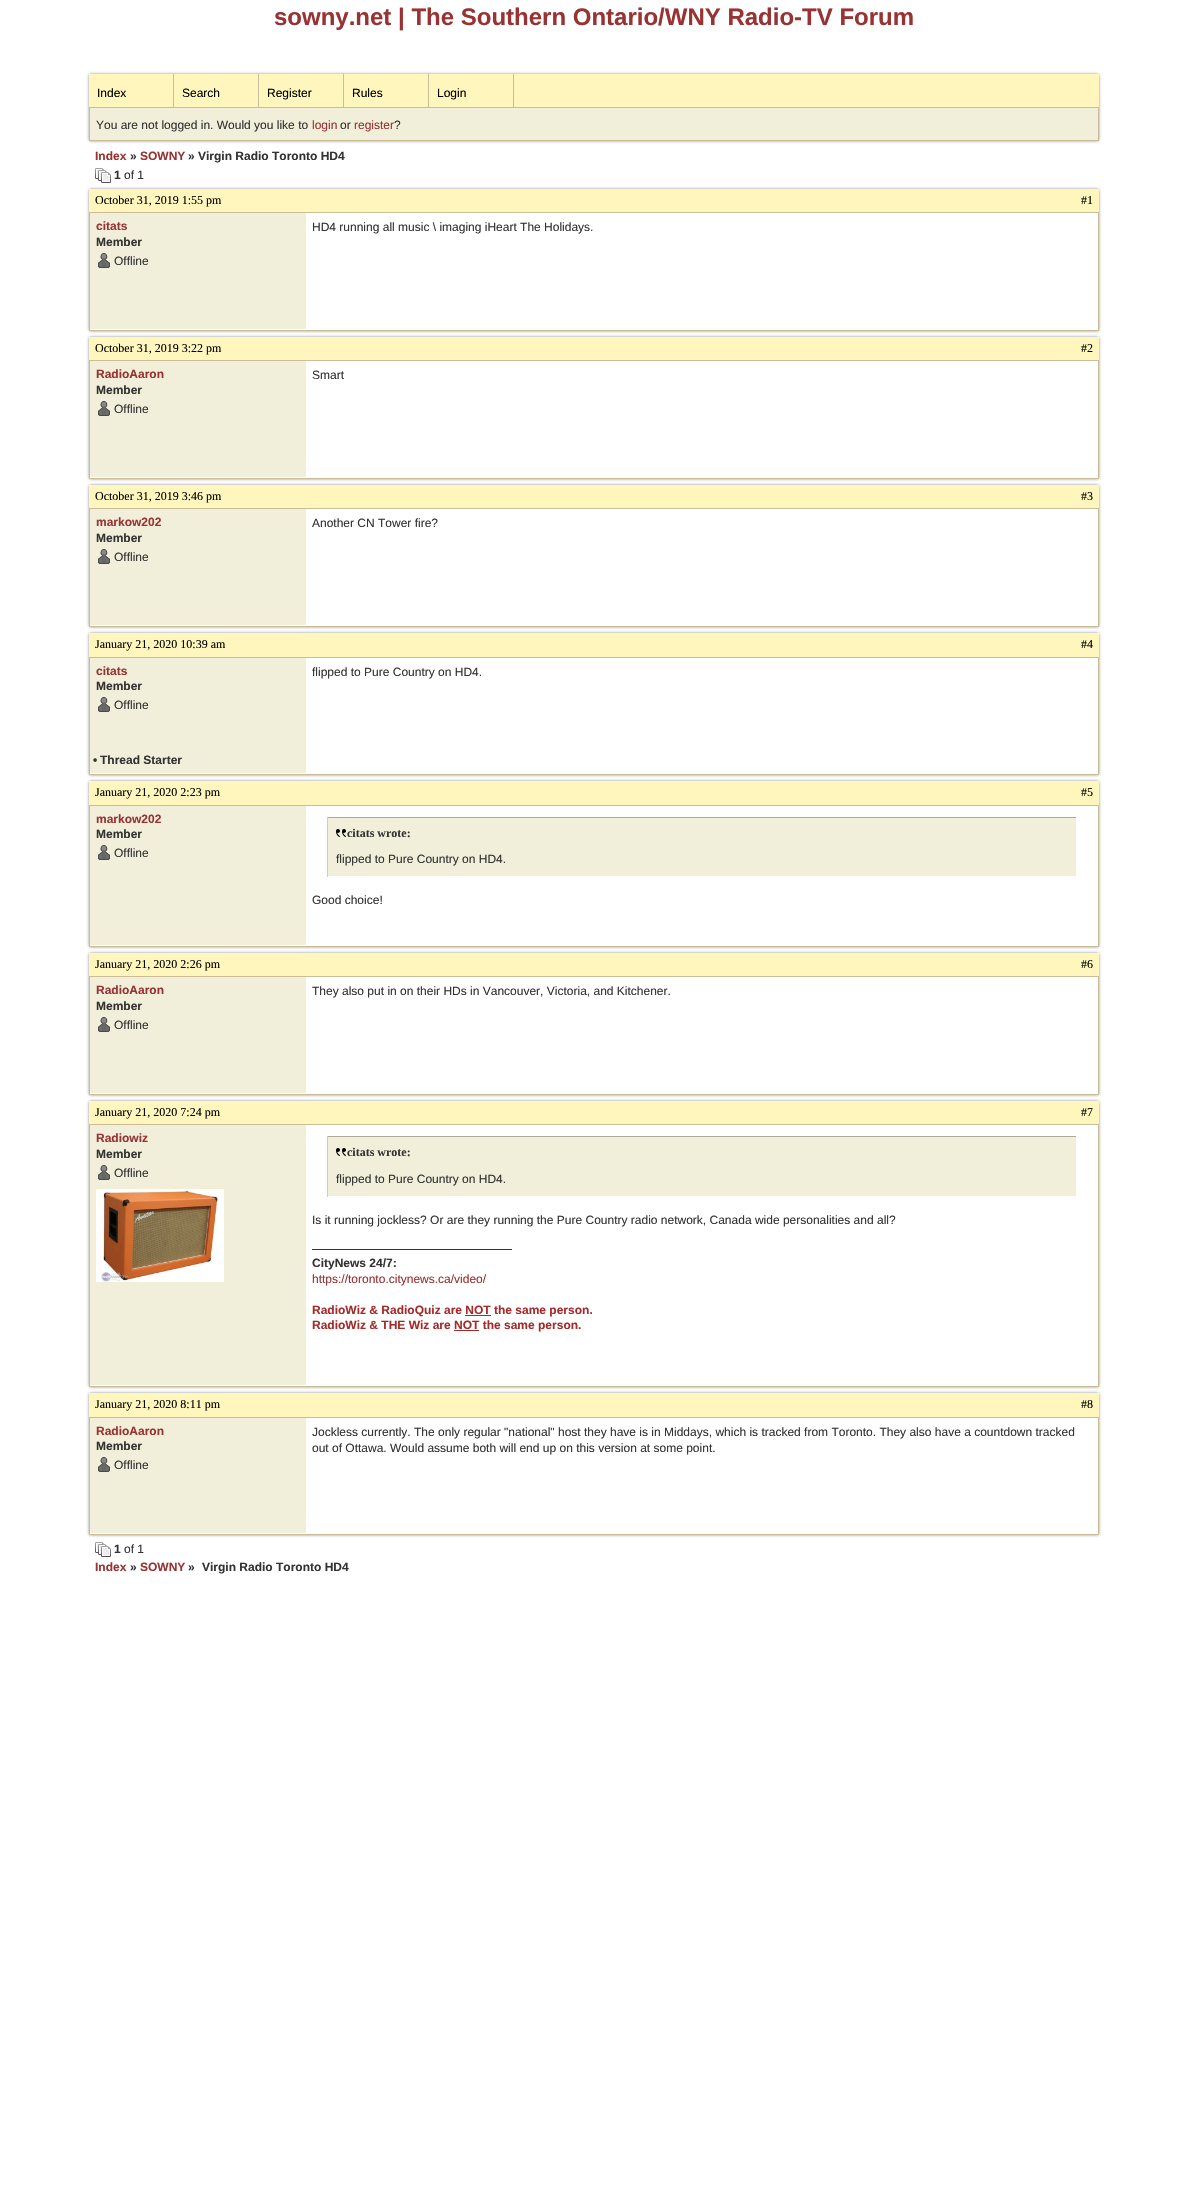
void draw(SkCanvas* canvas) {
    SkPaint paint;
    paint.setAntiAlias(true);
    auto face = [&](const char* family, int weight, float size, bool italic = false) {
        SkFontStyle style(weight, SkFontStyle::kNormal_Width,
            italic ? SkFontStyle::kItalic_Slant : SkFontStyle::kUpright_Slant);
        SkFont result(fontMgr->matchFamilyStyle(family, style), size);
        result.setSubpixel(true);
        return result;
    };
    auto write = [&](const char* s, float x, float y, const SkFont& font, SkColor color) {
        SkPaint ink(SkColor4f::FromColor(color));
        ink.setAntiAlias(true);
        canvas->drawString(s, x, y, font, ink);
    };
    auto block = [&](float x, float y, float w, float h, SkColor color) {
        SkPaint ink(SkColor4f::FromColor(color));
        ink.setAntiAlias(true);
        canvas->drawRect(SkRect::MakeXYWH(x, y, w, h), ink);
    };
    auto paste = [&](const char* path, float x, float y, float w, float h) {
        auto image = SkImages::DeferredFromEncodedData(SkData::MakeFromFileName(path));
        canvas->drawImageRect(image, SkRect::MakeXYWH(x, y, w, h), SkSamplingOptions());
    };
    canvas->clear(SK_ColorWHITE);
    auto kFont1 = face("Liberation Sans", 700, 24);
    write("sowny.net | The Southern Ontario/WNY Radio-TV Forum", 274, 25, kFont1, SkColorSetRGB(153, 51, 51));
    paint.setColor(SkColorSetRGB(136, 136, 136));
    paint.setMaskFilter(SkMaskFilter::MakeBlur(kNormal_SkBlurStyle, 1.5f));
    canvas->drawRoundRect(SkRect::MakeXYWH(89, 74, 1010, 67), 2, 2, paint);
    paint.setMaskFilter(nullptr);
    block(90, 108, 1008, 32, SkColorSetRGB(241, 238, 217));
    paint.setStyle(SkPaint::kStroke_Style);
    paint.setStrokeWidth(1);
    paint.setColor(SkColorSetRGB(204, 189, 153));
    canvas->drawRect(SkRect::MakeXYWH(89.5f, 74.5f, 1009, 66), paint);
    block(89, 74, 1010, 33, SkColorSetRGB(255, 246, 189));
    block(89, 107, 1010, 1, SkColorSetRGB(204, 189, 153));
    block(173, 74, 1, 33, SkColorSetRGB(204, 189, 153));
    auto kFont2 = face("Liberation Sans", 400, 12);
    write("Index", 97, 97, kFont2, SK_ColorBLACK);
    block(258, 74, 1, 33, SkColorSetRGB(204, 189, 153));
    write("Search", 182, 97, kFont2, SK_ColorBLACK);
    block(343, 74, 1, 33, SkColorSetRGB(204, 189, 153));
    write("Register", 267, 97, kFont2, SK_ColorBLACK);
    block(428, 74, 1, 33, SkColorSetRGB(204, 189, 153));
    write("Rules", 352, 97, kFont2, SK_ColorBLACK);
    block(513, 74, 1, 33, SkColorSetRGB(204, 189, 153));
    write("Login", 437, 97, kFont2, SK_ColorBLACK);
    write("You are not logged in. Would you like to", 96, 129, kFont2, SkColorSetRGB(51, 51, 51));
    write("login", 312, 129, kFont2, SkColorSetRGB(153, 51, 51));
    write("or", 340, 129, kFont2, SkColorSetRGB(51, 51, 51));
    write("register", 354, 129, kFont2, SkColorSetRGB(153, 51, 51));
    write("?", 394, 129, kFont2, SkColorSetRGB(51, 51, 51));
    auto kFont3 = face("Liberation Sans", 700, 12);
    write("Index", 95, 160, kFont3, SkColorSetRGB(153, 51, 51));
    write("»", 130, 160, kFont3, SkColorSetRGB(51, 51, 51));
    write("SOWNY", 140, 160, kFont3, SkColorSetRGB(153, 51, 51));
    write("» Virgin Radio Toronto HD4", 188, 160, kFont3, SkColorSetRGB(51, 51, 51));
    paste("pic1.png", 95, 168, 16, 15);
    write("1", 114, 179, kFont3, SkColorSetRGB(51, 51, 51));
    write("of 1", 124, 179, kFont2, SkColorSetRGB(51, 51, 51));
    paint.setStyle(SkPaint::kFill_Style);
    paint.setColor(SkColorSetRGB(136, 136, 136));
    paint.setMaskFilter(SkMaskFilter::MakeBlur(kNormal_SkBlurStyle, 1.5f));
    canvas->drawRoundRect(SkRect::MakeXYWH(89, 189, 1010, 142), 2, 2, paint);
    paint.setMaskFilter(nullptr);
    block(89, 189, 1010, 23, SkColorSetRGB(255, 246, 189));
    auto kFont4 = face("Liberation Serif", 400, 12);
    write("October 31, 2019 1:55 pm", 95, 204, kFont4, SK_ColorBLACK);
    write("#1", 1081, 204, kFont4, SK_ColorBLACK);
    paint.setColor(SK_ColorWHITE);
    canvas->drawRect(SkRect::MakeXYWH(89.5f, 212.5f, 1009, 118), paint);
    paint.setStyle(SkPaint::kStroke_Style);
    paint.setColor(SkColorSetRGB(204, 189, 153));
    canvas->drawRect(SkRect::MakeXYWH(89.5f, 212.5f, 1009, 118), paint);
    block(90, 213, 216, 116, SkColorSetRGB(241, 238, 217));
    write("citats", 96, 230, kFont3, SkColorSetRGB(153, 51, 51));
    write("Member", 96, 246, kFont3, SkColorSetRGB(51, 51, 51));
    paste("pic2.png", 98, 253, 12, 15);
    write("Offline", 114, 265, kFont2, SkColorSetRGB(51, 51, 51));
    write("HD4 running all music \\ imaging iHeart The Holidays.", 312, 231, kFont2, SkColorSetRGB(51, 51, 51));
    paint.setStyle(SkPaint::kFill_Style);
    paint.setColor(SkColorSetRGB(136, 136, 136));
    paint.setMaskFilter(SkMaskFilter::MakeBlur(kNormal_SkBlurStyle, 1.5f));
    canvas->drawRoundRect(SkRect::MakeXYWH(89, 337, 1010, 142), 2, 2, paint);
    paint.setMaskFilter(nullptr);
    block(89, 337, 1010, 23, SkColorSetRGB(255, 246, 189));
    write("October 31, 2019 3:22 pm", 95, 352, kFont4, SK_ColorBLACK);
    write("#2", 1081, 352, kFont4, SK_ColorBLACK);
    paint.setColor(SK_ColorWHITE);
    canvas->drawRect(SkRect::MakeXYWH(89.5f, 360.5f, 1009, 118), paint);
    paint.setStyle(SkPaint::kStroke_Style);
    paint.setColor(SkColorSetRGB(204, 189, 153));
    canvas->drawRect(SkRect::MakeXYWH(89.5f, 360.5f, 1009, 118), paint);
    block(90, 361, 216, 116, SkColorSetRGB(241, 238, 217));
    write("RadioAaron", 96, 378, kFont3, SkColorSetRGB(153, 51, 51));
    write("Member", 96, 394, kFont3, SkColorSetRGB(51, 51, 51));
    paste("pic2.png", 98, 401, 12, 15);
    write("Offline", 114, 413, kFont2, SkColorSetRGB(51, 51, 51));
    write("Smart", 312, 379, kFont2, SkColorSetRGB(51, 51, 51));
    paint.setStyle(SkPaint::kFill_Style);
    paint.setColor(SkColorSetRGB(136, 136, 136));
    paint.setMaskFilter(SkMaskFilter::MakeBlur(kNormal_SkBlurStyle, 1.5f));
    canvas->drawRoundRect(SkRect::MakeXYWH(89, 485, 1010, 142), 2, 2, paint);
    paint.setMaskFilter(nullptr);
    block(89, 485, 1010, 23, SkColorSetRGB(255, 246, 189));
    write("October 31, 2019 3:46 pm", 95, 500, kFont4, SK_ColorBLACK);
    write("#3", 1081, 500, kFont4, SK_ColorBLACK);
    paint.setColor(SK_ColorWHITE);
    canvas->drawRect(SkRect::MakeXYWH(89.5f, 508.5f, 1009, 118), paint);
    paint.setStyle(SkPaint::kStroke_Style);
    paint.setColor(SkColorSetRGB(204, 189, 153));
    canvas->drawRect(SkRect::MakeXYWH(89.5f, 508.5f, 1009, 118), paint);
    block(90, 509, 216, 116, SkColorSetRGB(241, 238, 217));
    write("markow202", 96, 526, kFont3, SkColorSetRGB(153, 51, 51));
    write("Member", 96, 542, kFont3, SkColorSetRGB(51, 51, 51));
    paste("pic2.png", 98, 549, 12, 15);
    write("Offline", 114, 561, kFont2, SkColorSetRGB(51, 51, 51));
    write("Another CN Tower fire?", 312, 527, kFont2, SkColorSetRGB(51, 51, 51));
    paint.setStyle(SkPaint::kFill_Style);
    paint.setColor(SkColorSetRGB(136, 136, 136));
    paint.setMaskFilter(SkMaskFilter::MakeBlur(kNormal_SkBlurStyle, 1.5f));
    canvas->drawRoundRect(SkRect::MakeXYWH(89, 633, 1010, 142), 2, 2, paint);
    paint.setMaskFilter(nullptr);
    block(89, 633, 1010, 24, SkColorSetRGB(255, 246, 189));
    write("January 21, 2020 10:39 am", 95, 648, kFont4, SK_ColorBLACK);
    write("#4", 1081, 648, kFont4, SK_ColorBLACK);
    paint.setColor(SK_ColorWHITE);
    canvas->drawRect(SkRect::MakeXYWH(89.5f, 657.5f, 1009, 117), paint);
    paint.setStyle(SkPaint::kStroke_Style);
    paint.setColor(SkColorSetRGB(204, 189, 153));
    canvas->drawRect(SkRect::MakeXYWH(89.5f, 657.5f, 1009, 117), paint);
    block(90, 658, 216, 115, SkColorSetRGB(241, 238, 217));
    write("citats", 96, 675, kFont3, SkColorSetRGB(153, 51, 51));
    write("Member", 96, 690, kFont3, SkColorSetRGB(51, 51, 51));
    paste("pic2.png", 98, 697, 12, 15);
    write("Offline", 114, 709, kFont2, SkColorSetRGB(51, 51, 51));
    write("flipped to Pure Country on HD4.", 312, 676, kFont2, SkColorSetRGB(51, 51, 51));
    write("•", 93, 764, kFont3, SkColorSetRGB(51, 51, 51));
    write("Thread Starter", 100, 764, kFont3, SkColorSetRGB(51, 51, 51));
    paint.setStyle(SkPaint::kFill_Style);
    paint.setColor(SkColorSetRGB(136, 136, 136));
    paint.setMaskFilter(SkMaskFilter::MakeBlur(kNormal_SkBlurStyle, 1.5f));
    canvas->drawRoundRect(SkRect::MakeXYWH(89, 781, 1010, 166), 2, 2, paint);
    paint.setMaskFilter(nullptr);
    block(89, 781, 1010, 24, SkColorSetRGB(255, 246, 189));
    write("January 21, 2020 2:23 pm", 95, 796, kFont4, SK_ColorBLACK);
    write("#5", 1081, 796, kFont4, SK_ColorBLACK);
    paint.setColor(SK_ColorWHITE);
    canvas->drawRect(SkRect::MakeXYWH(89.5f, 805.5f, 1009, 141), paint);
    paint.setStyle(SkPaint::kStroke_Style);
    paint.setColor(SkColorSetRGB(204, 189, 153));
    canvas->drawRect(SkRect::MakeXYWH(89.5f, 805.5f, 1009, 141), paint);
    block(90, 806, 216, 139, SkColorSetRGB(241, 238, 217));
    write("markow202", 96, 823, kFont3, SkColorSetRGB(153, 51, 51));
    write("Member", 96, 838, kFont3, SkColorSetRGB(51, 51, 51));
    paste("pic2.png", 98, 845, 12, 15);
    write("Offline", 114, 857, kFont2, SkColorSetRGB(51, 51, 51));
    block(328, 818, 748, 58, SkColorSetRGB(241, 238, 217));
    block(327, 817, 750, 1, SkColorSetRGB(172, 168, 153));
    block(1076, 817, 1, 1, SK_ColorWHITE);
    block(327, 817, 1, 60, SkColorSetRGB(204, 204, 204));
    paste("pic3.png", 336, 829, 10, 8);
    auto kFont5 = face("Liberation Serif", 700, 12);
    write("citats wrote:", 347, 837, kFont5, SkColorSetRGB(51, 51, 51));
    write("flipped to Pure Country on HD4.", 336, 863, kFont2, SkColorSetRGB(51, 51, 51));
    write("Good choice!", 312, 904, kFont2, SkColorSetRGB(51, 51, 51));
    paint.setStyle(SkPaint::kFill_Style);
    paint.setColor(SkColorSetRGB(136, 136, 136));
    paint.setMaskFilter(SkMaskFilter::MakeBlur(kNormal_SkBlurStyle, 1.5f));
    canvas->drawRoundRect(SkRect::MakeXYWH(89, 953, 1010, 142), 2, 2, paint);
    paint.setMaskFilter(nullptr);
    block(89, 953, 1010, 23, SkColorSetRGB(255, 246, 189));
    write("January 21, 2020 2:26 pm", 95, 968, kFont4, SK_ColorBLACK);
    write("#6", 1081, 968, kFont4, SK_ColorBLACK);
    paint.setColor(SK_ColorWHITE);
    canvas->drawRect(SkRect::MakeXYWH(89.5f, 976.5f, 1009, 118), paint);
    paint.setStyle(SkPaint::kStroke_Style);
    paint.setColor(SkColorSetRGB(204, 189, 153));
    canvas->drawRect(SkRect::MakeXYWH(89.5f, 976.5f, 1009, 118), paint);
    block(90, 977, 216, 116, SkColorSetRGB(241, 238, 217));
    write("RadioAaron", 96, 994, kFont3, SkColorSetRGB(153, 51, 51));
    write("Member", 96, 1010, kFont3, SkColorSetRGB(51, 51, 51));
    paste("pic2.png", 98, 1017, 12, 15);
    write("Offline", 114, 1029, kFont2, SkColorSetRGB(51, 51, 51));
    write("They also put in on their HDs in Vancouver, Victoria, and Kitchener.", 312, 995, kFont2, SkColorSetRGB(51, 51, 51));
    paint.setStyle(SkPaint::kFill_Style);
    paint.setColor(SkColorSetRGB(136, 136, 136));
    paint.setMaskFilter(SkMaskFilter::MakeBlur(kNormal_SkBlurStyle, 1.5f));
    canvas->drawRoundRect(SkRect::MakeXYWH(89, 1101, 1010, 286), 2, 2, paint);
    paint.setMaskFilter(nullptr);
    block(89, 1101, 1010, 23, SkColorSetRGB(255, 246, 189));
    write("January 21, 2020 7:24 pm", 95, 1116, kFont4, SK_ColorBLACK);
    write("#7", 1081, 1116, kFont4, SK_ColorBLACK);
    paint.setColor(SK_ColorWHITE);
    canvas->drawRect(SkRect::MakeXYWH(89.5f, 1124.5f, 1009, 262), paint);
    paint.setStyle(SkPaint::kStroke_Style);
    paint.setColor(SkColorSetRGB(204, 189, 153));
    canvas->drawRect(SkRect::MakeXYWH(89.5f, 1124.5f, 1009, 262), paint);
    block(90, 1125, 216, 260, SkColorSetRGB(241, 238, 217));
    write("Radiowiz", 96, 1142, kFont3, SkColorSetRGB(153, 51, 51));
    write("Member", 96, 1158, kFont3, SkColorSetRGB(51, 51, 51));
    paste("pic2.png", 98, 1165, 12, 15);
    write("Offline", 114, 1177, kFont2, SkColorSetRGB(51, 51, 51));
    paste("pic4.png", 96, 1189, 128, 93);
    block(328, 1137, 748, 59, SkColorSetRGB(241, 238, 217));
    block(327, 1136, 750, 1, SkColorSetRGB(172, 168, 153));
    block(1076, 1136, 1, 1, SK_ColorWHITE);
    block(327, 1136, 1, 61, SkColorSetRGB(204, 204, 204));
    paste("pic3.png", 336, 1148, 10, 8);
    write("citats wrote:", 347, 1156, kFont5, SkColorSetRGB(51, 51, 51));
    write("flipped to Pure Country on HD4.", 336, 1183, kFont2, SkColorSetRGB(51, 51, 51));
    write("Is it running jockless? Or are they running the Pure Country radio network, Canada wide personalities and all?", 312, 1224, kFont2, SkColorSetRGB(51, 51, 51));
    block(312, 1249, 200, 1, SkColorSetRGB(51, 51, 51));
    write("CityNews 24/7:", 312, 1267, kFont3, SkColorSetRGB(51, 51, 51));
    write("https://toronto.citynews.ca/video/", 312, 1283, kFont2, SkColorSetRGB(153, 51, 51));
    write("RadioWiz & RadioQuiz are NOT the same person.", 312, 1314, kFont3, SkColorSetRGB(165, 42, 42));
    block(465, 1315, 26, 1, SkColorSetRGB(165, 42, 42));
    write("RadioWiz & THE Wiz are NOT the same person.", 312, 1329, kFont3, SkColorSetRGB(165, 42, 42));
    block(454, 1330, 25, 1, SkColorSetRGB(165, 42, 42));
    paint.setStyle(SkPaint::kFill_Style);
    paint.setColor(SkColorSetRGB(136, 136, 136));
    paint.setMaskFilter(SkMaskFilter::MakeBlur(kNormal_SkBlurStyle, 1.5f));
    canvas->drawRoundRect(SkRect::MakeXYWH(89, 1393, 1010, 142), 2, 2, paint);
    paint.setMaskFilter(nullptr);
    block(89, 1393, 1010, 24, SkColorSetRGB(255, 246, 189));
    write("January 21, 2020 8:11 pm", 95, 1408, kFont4, SK_ColorBLACK);
    write("#8", 1081, 1408, kFont4, SK_ColorBLACK);
    paint.setColor(SK_ColorWHITE);
    canvas->drawRect(SkRect::MakeXYWH(89.5f, 1417.5f, 1009, 117), paint);
    paint.setStyle(SkPaint::kStroke_Style);
    paint.setColor(SkColorSetRGB(204, 189, 153));
    canvas->drawRect(SkRect::MakeXYWH(89.5f, 1417.5f, 1009, 117), paint);
    block(90, 1418, 216, 115, SkColorSetRGB(241, 238, 217));
    write("RadioAaron", 96, 1435, kFont3, SkColorSetRGB(153, 51, 51));
    write("Member", 96, 1450, kFont3, SkColorSetRGB(51, 51, 51));
    paste("pic2.png", 98, 1457, 12, 15);
    write("Offline", 114, 1469, kFont2, SkColorSetRGB(51, 51, 51));
    write("Jockless currently. The only regular \"national\" host they have is in Middays, which is tracked from Toronto. They also have a countdown tracked", 312, 1436, kFont2, SkColorSetRGB(51, 51, 51));
    write("out of Ottawa. Would assume both will end up on this version at some point.", 312, 1452, kFont2, SkColorSetRGB(51, 51, 51));
    paste("pic1.png", 95, 1542, 16, 15);
    write("1", 114, 1553, kFont3, SkColorSetRGB(51, 51, 51));
    write("of 1", 124, 1553, kFont2, SkColorSetRGB(51, 51, 51));
    write("Index", 95, 1571, kFont3, SkColorSetRGB(153, 51, 51));
    write("»", 130, 1571, kFont3, SkColorSetRGB(51, 51, 51));
    write("SOWNY", 140, 1571, kFont3, SkColorSetRGB(153, 51, 51));
    write("»", 188, 1571, kFont3, SkColorSetRGB(51, 51, 51));
    write("Virgin Radio Toronto HD4", 202, 1571, kFont3, SkColorSetRGB(51, 51, 51));
}
